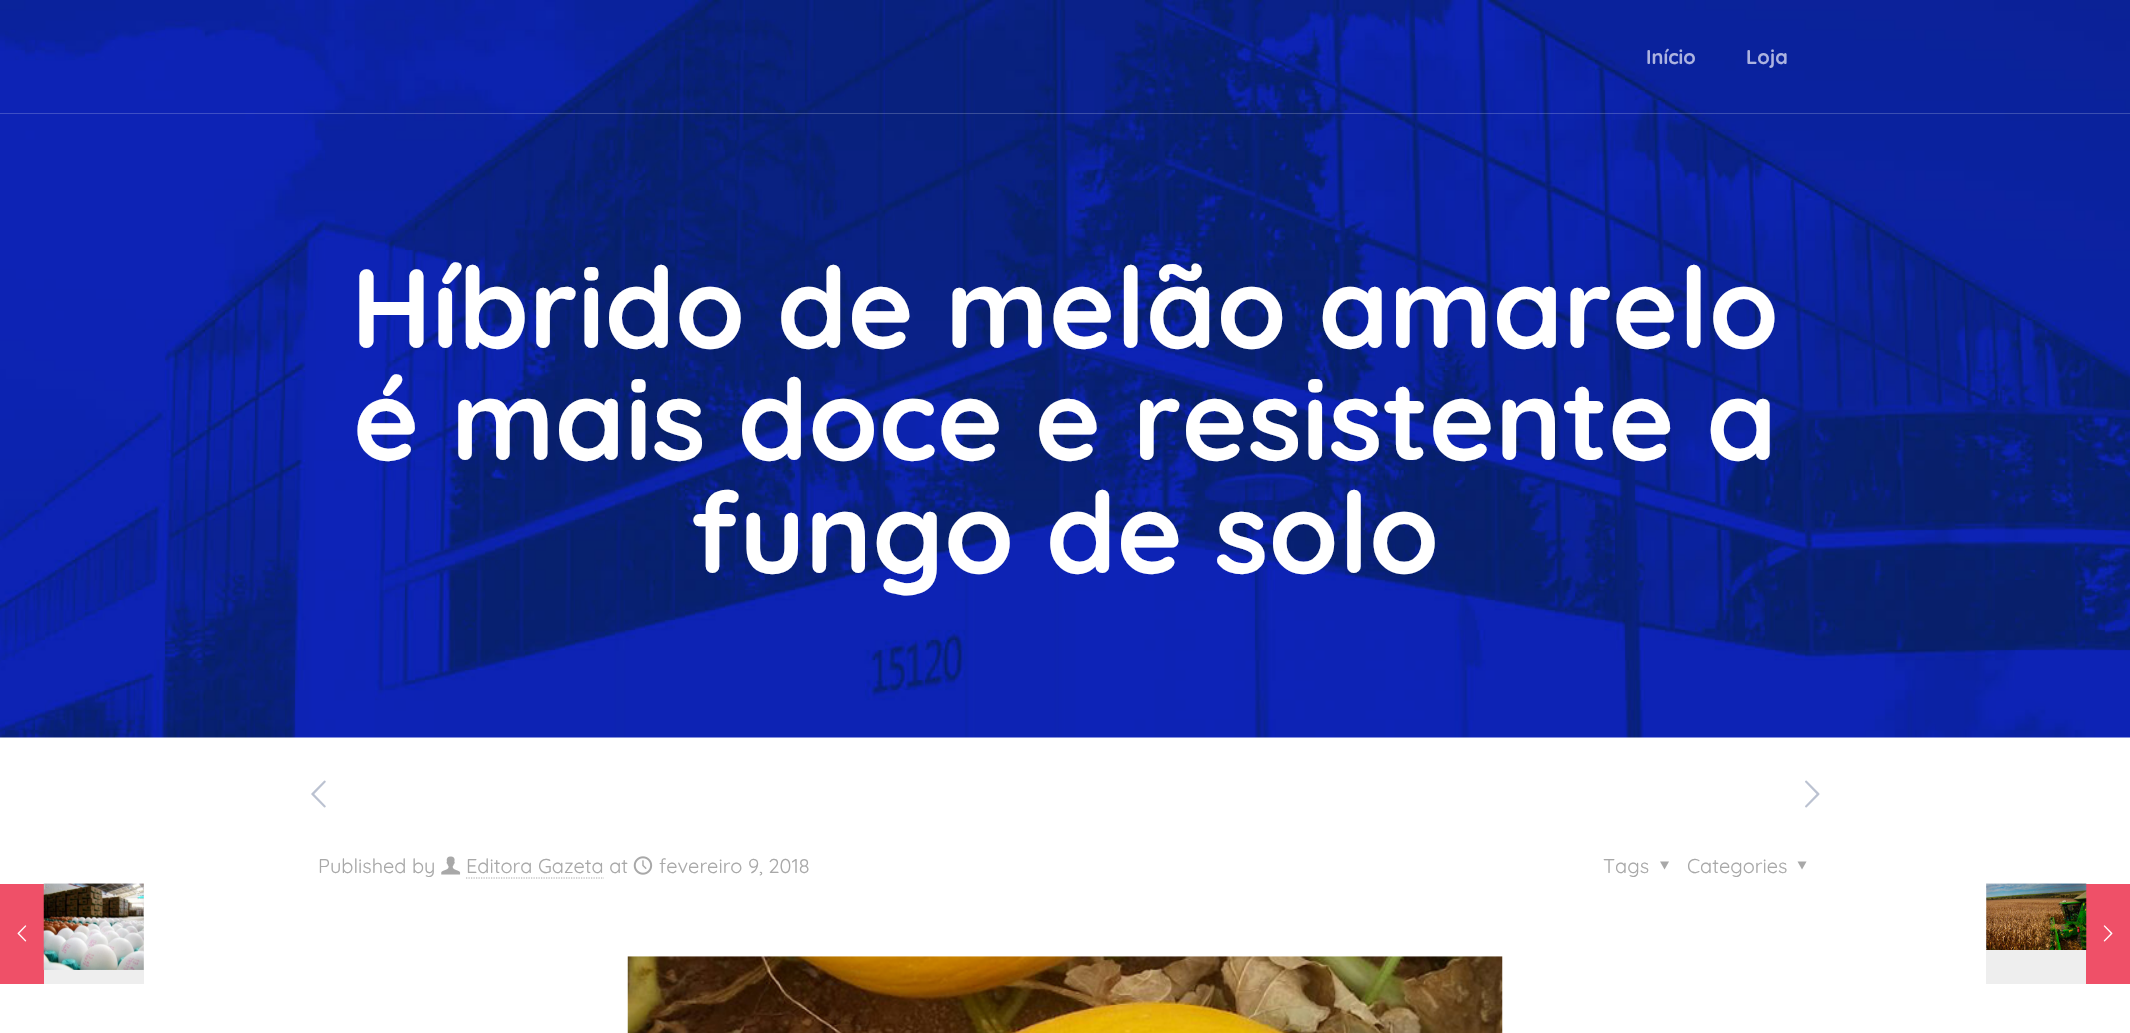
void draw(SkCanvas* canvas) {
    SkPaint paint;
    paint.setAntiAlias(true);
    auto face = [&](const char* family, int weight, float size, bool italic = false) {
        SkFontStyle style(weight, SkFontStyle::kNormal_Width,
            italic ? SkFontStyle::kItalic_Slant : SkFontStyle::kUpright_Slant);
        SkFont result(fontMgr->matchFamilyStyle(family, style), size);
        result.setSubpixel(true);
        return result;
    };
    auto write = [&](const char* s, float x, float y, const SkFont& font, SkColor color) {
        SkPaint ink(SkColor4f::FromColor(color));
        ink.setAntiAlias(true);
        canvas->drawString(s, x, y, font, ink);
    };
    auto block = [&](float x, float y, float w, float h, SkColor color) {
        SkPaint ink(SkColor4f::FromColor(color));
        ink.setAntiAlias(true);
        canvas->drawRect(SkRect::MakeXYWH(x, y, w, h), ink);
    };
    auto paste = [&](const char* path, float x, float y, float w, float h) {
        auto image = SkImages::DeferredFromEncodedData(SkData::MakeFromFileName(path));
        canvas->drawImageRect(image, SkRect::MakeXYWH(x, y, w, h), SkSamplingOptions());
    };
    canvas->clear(SK_ColorWHITE);
    paste("pic1.png", 0, 0, 2130, 738);
    block(0, 113, 2130, 1, SkColorSetARGB(51, 255, 255, 255));
    auto kFont1 = face("Quicksand", 700, 20);
    write("Início", 1646, 64, kFont1, SkColorSetRGB(172, 179, 224));
    write("Loja", 1746, 64, kFont1, SkColorSetRGB(172, 179, 224));
    auto kFont2 = face("Quicksand", 700, 112.5f);
    write("Híbrido de melão amarelo", 351, 348, kFont2, SK_ColorWHITE);
    write("é mais doce e resistente a", 353, 460, kFont2, SK_ColorWHITE);
    write("fungo de solo", 690, 573, kFont2, SK_ColorWHITE);
    paste("pic2.png", 311, 780, 15, 28);
    paste("pic3.png", 1805, 780, 15, 28);
    auto kFont3 = face("Quicksand", 400, 20);
    write("Published by", 318, 873, kFont3, SkColorSetRGB(168, 168, 168));
    paste("pic4.png", 441, 856, 20, 19);
    write("Editora Gazeta at", 466, 873, kFont3, SkColorSetRGB(168, 168, 168));
    paint.setStyle(SkPaint::kStroke_Style);
    paint.setStrokeWidth(1.2f);
    paint.setColor(SkColorSetRGB(168, 168, 168));
    paint.setPathEffect(SkDashPathEffect::Make({{1.25f, 1.25f}}, 0));
    canvas->drawPath(SkPathBuilder().moveTo(466, 878).lineTo(604, 878).detach(), paint);
    paint.setPathEffect(nullptr);
    paste("pic5.png", 633, 856, 20, 19);
    write("fevereiro 9, 2018", 659, 873, kFont3, SkColorSetRGB(168, 168, 168));
    write("Tags", 1603, 873, kFont3, SkColorSetRGB(168, 168, 168));
    paint.setStyle(SkPaint::kFill_Style);
    canvas->drawPath(SkPathBuilder().moveTo(1669, 861.5f).lineTo(1664.5f, 869.5f).lineTo(1660, 861.5f).close().detach(), paint);
    write("Categories", 1687, 873, kFont3, SkColorSetRGB(168, 168, 168));
    canvas->drawPath(SkPathBuilder().moveTo(1806.5f, 861.5f).lineTo(1802, 869.5f).lineTo(1797.5f, 861.5f).close().detach(), paint);
    paste("pic6.png", 627, 956, 876, 77);
    block(0, 884, 44, 100, SkColorSetRGB(239, 80, 104));
    paste("pic7.png", 17, 925, 10, 17);
    block(44, 884, 100, 100, SkColorSetRGB(238, 238, 238));
    paste("pic9.png", 43, 883, 101, 1);
    paste("pic8.png", 43, 883, 101, 87);
    paste("pic10.png", 1986, 883, 101, 1);
    block(1986, 884, 100, 100, SkColorSetRGB(238, 238, 238));
    block(2086, 884, 44, 100, SkColorSetRGB(239, 80, 104));
    paste("pic11.png", 1986, 883, 101, 67);
    paste("pic12.png", 2103, 925, 10, 17);
}
